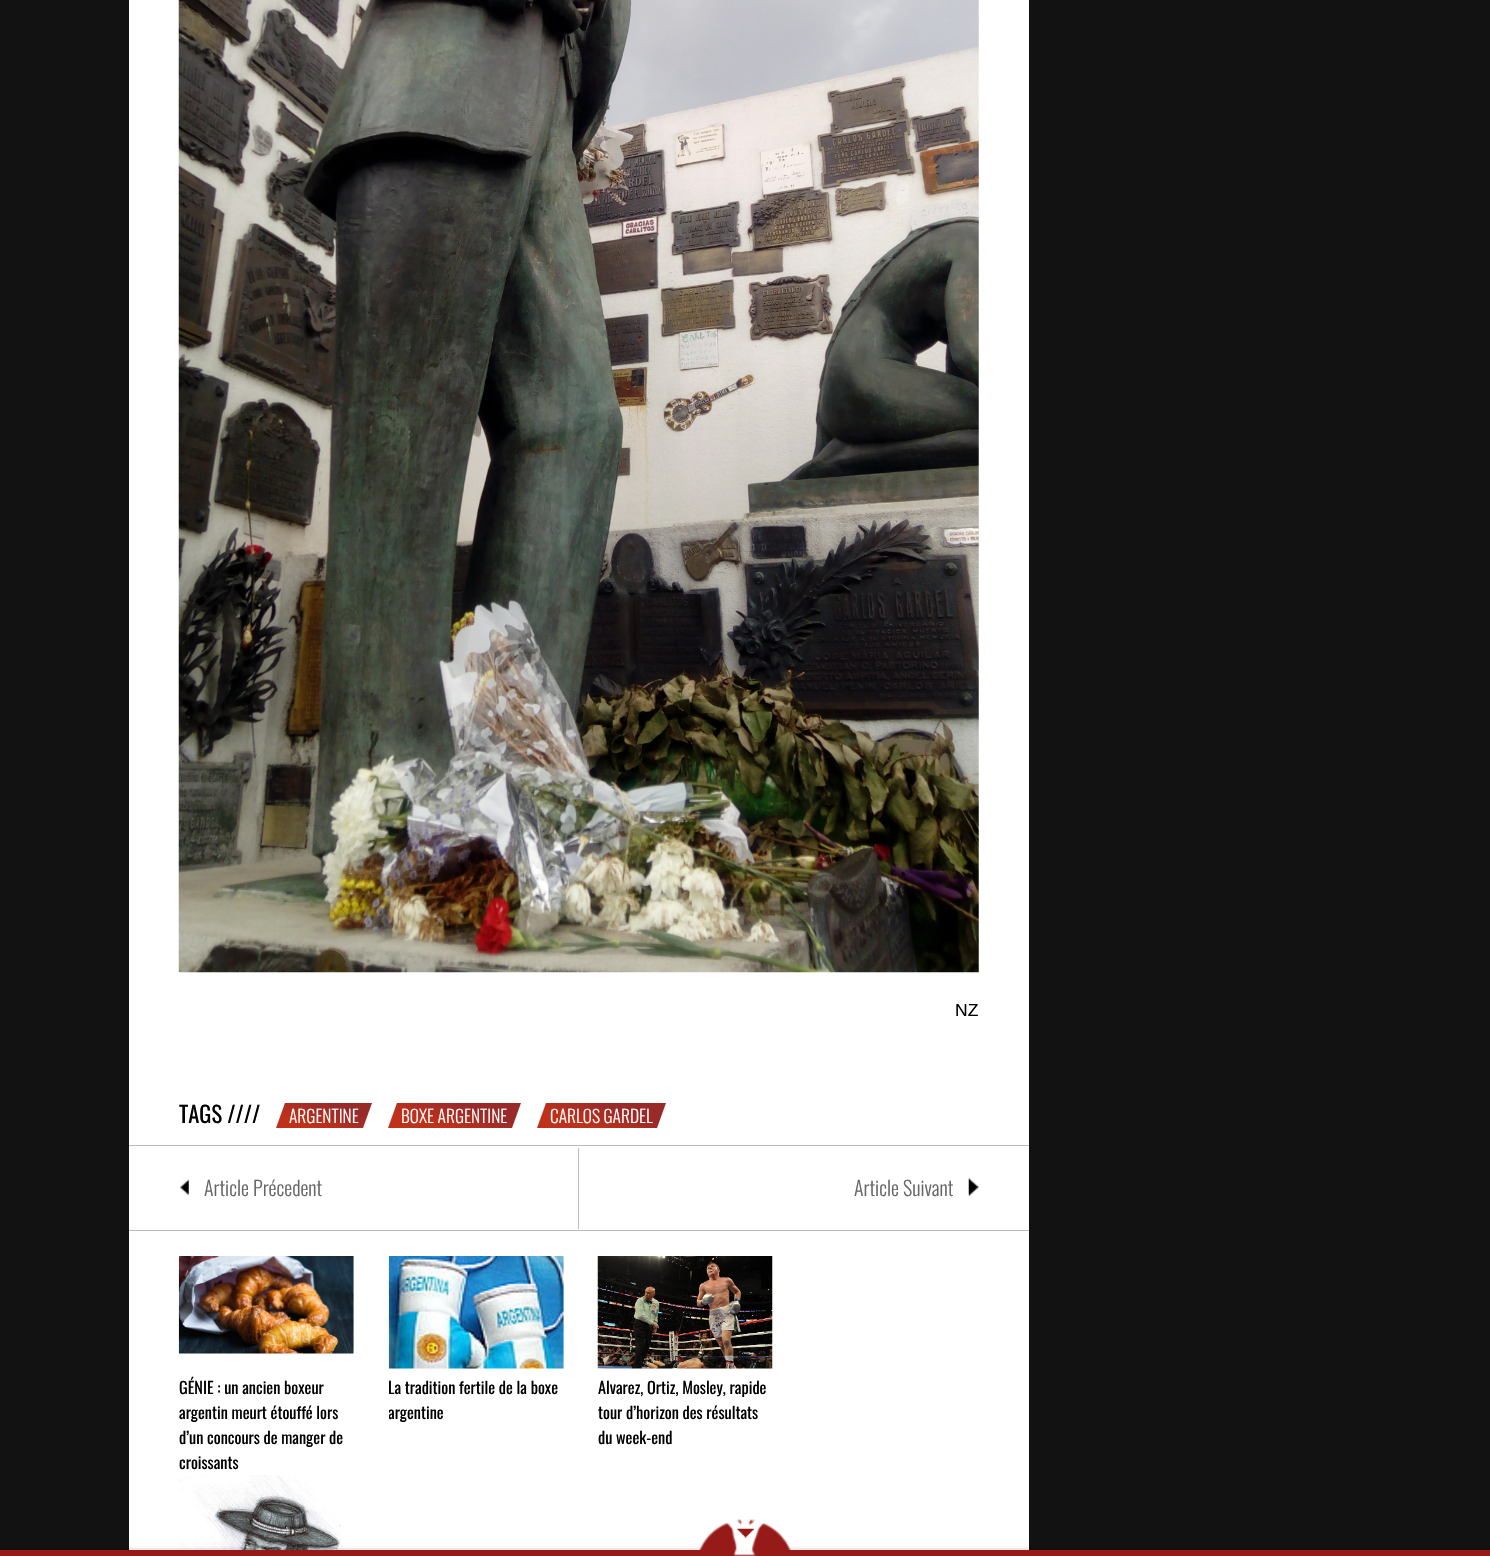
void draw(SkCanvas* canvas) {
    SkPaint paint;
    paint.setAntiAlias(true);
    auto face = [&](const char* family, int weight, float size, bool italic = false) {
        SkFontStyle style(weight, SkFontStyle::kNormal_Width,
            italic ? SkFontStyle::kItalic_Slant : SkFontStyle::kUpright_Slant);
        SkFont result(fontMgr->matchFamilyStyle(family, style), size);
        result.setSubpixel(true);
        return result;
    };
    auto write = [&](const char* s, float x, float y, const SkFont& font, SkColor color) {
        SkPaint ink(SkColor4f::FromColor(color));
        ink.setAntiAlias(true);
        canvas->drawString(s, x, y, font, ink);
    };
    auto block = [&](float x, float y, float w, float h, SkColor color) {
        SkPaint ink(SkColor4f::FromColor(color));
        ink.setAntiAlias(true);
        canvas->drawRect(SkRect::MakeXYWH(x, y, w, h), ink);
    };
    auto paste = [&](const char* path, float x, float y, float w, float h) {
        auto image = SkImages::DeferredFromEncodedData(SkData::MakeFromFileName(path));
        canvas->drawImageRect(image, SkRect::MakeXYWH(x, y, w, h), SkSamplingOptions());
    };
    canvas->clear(SkColorSetRGB(18, 18, 18));
    block(129, 0, 900, 1550, SK_ColorWHITE);
    paste("pic1.png", 178, 0, 801, 973);
    auto kFont1 = face("Liberation Sans", 400, 17.5f);
    write("NZ", 955, 1016, kFont1, SK_ColorBLACK);
    auto kFont2 = face("Oswald", 400, 22.5f);
    write("TAGS ////", 179, 1123, kFont2, SK_ColorBLACK);
    {
        const SkColor colors[] = {SkColorSetRGB(153, 42, 42), SkColorSetRGB(190, 49, 27)};
        const float stops[] = {0.01f, 1};
        const SkPoint ends[] = {{328, 1103}, {319, 1128}};
        paint.setShader(SkGradientShader::MakeLinear(ends, colors, stops, 2, SkTileMode::kClamp));
        paint.setAlpha(255);
    }
    canvas->drawPath(SkPathBuilder().moveTo(285, 1103).lineTo(372, 1103).lineTo(363, 1128).lineTo(276, 1128).close().detach(), paint);
    auto kFont3 = face("Oswald", 300, 17.5f);
    write("ARGENTINE", 289, 1123, kFont3, SK_ColorWHITE);
    {
        const SkColor colors[] = {SkColorSetRGB(153, 42, 42), SkColorSetRGB(190, 49, 27)};
        const float stops[] = {0.01f, 1};
        const SkPoint ends[] = {{459, 1103}, {450, 1128}};
        paint.setShader(SkGradientShader::MakeLinear(ends, colors, stops, 2, SkTileMode::kClamp));
        paint.setAlpha(255);
    }
    canvas->drawPath(SkPathBuilder().moveTo(397, 1103).lineTo(521, 1103).lineTo(512, 1128).lineTo(388, 1128).close().detach(), paint);
    write("BOXE ARGENTINE", 401, 1123, kFont3, SK_ColorWHITE);
    {
        const SkColor colors[] = {SkColorSetRGB(153, 42, 42), SkColorSetRGB(190, 49, 27)};
        const float stops[] = {0.01f, 1};
        const SkPoint ends[] = {{606, 1103}, {597, 1128}};
        paint.setShader(SkGradientShader::MakeLinear(ends, colors, stops, 2, SkTileMode::kClamp));
        paint.setAlpha(255);
    }
    canvas->drawPath(SkPathBuilder().moveTo(546, 1103).lineTo(666, 1103).lineTo(657, 1128).lineTo(537, 1128).close().detach(), paint);
    write("CARLOS GARDEL", 550, 1123, kFont3, SK_ColorWHITE);
    block(129, 1145, 900, 1, SkColorSetRGB(183, 187, 195));
    block(578, 1148, 1, 81, SkColorSetRGB(183, 187, 195));
    paste("pic2.png", 180, 1179, 9, 16);
    auto kFont4 = face("Oswald", 300, 20);
    write("Article Précedent", 204, 1196, kFont4, SkColorSetRGB(102, 102, 102));
    write("Article Suivant", 854, 1196, kFont4, SkColorSetRGB(102, 102, 102));
    paste("pic3.png", 968, 1178, 11, 19);
    block(129, 1230, 900, 1, SkColorSetRGB(183, 187, 195));
    paste("pic4.png", 178, 1256, 176, 98);
    auto kFont5 = face("Oswald", 400, 16.25f);
    write("GÉNIE : un ancien boxeur", 179, 1394, kFont5, SK_ColorBLACK);
    write("argentin meurt étouffé lors", 179, 1419, kFont5, SK_ColorBLACK);
    write("d’un concours de manger de", 179, 1444, kFont5, SK_ColorBLACK);
    write("croissants", 179, 1469, kFont5, SK_ColorBLACK);
    paste("pic5.png", 388, 1256, 176, 113);
    write("La tradition fertile de la boxe", 388, 1394, kFont5, SK_ColorBLACK);
    canvas->save();
    canvas->clipRect(SkRect::MakeXYWH(389, 1256, 175, 194));
    write("argentine", 388, 1419, kFont5, SK_ColorBLACK);
    canvas->restore();
    paste("pic6.png", 597, 1256, 176, 113);
    write("Alvarez, Ortiz, Mosley, rapide", 598, 1394, kFont5, SK_ColorBLACK);
    write("tour d’horizon des résultats", 598, 1419, kFont5, SK_ColorBLACK);
    write("du week-end", 598, 1444, kFont5, SK_ColorBLACK);
    paste("pic7.png", 179, 1475, 164, 75);
    paint.setShader(nullptr);
    paint.setColor(SkColorSetARGB(26, 0, 0, 0));
    paint.setMaskFilter(SkMaskFilter::MakeBlur(kNormal_SkBlurStyle, 1));
    canvas->drawRect(SkRect::MakeXYWH(0, 1548, 1490, 6), paint);
    paint.setMaskFilter(nullptr);
    block(0, 1550, 1490, 6, SkColorSetRGB(150, 26, 24));
    paste("pic8.png", 699, 1519, 92, 37);
    paste("pic9.png", 737, 1528, 17, 10);
}
